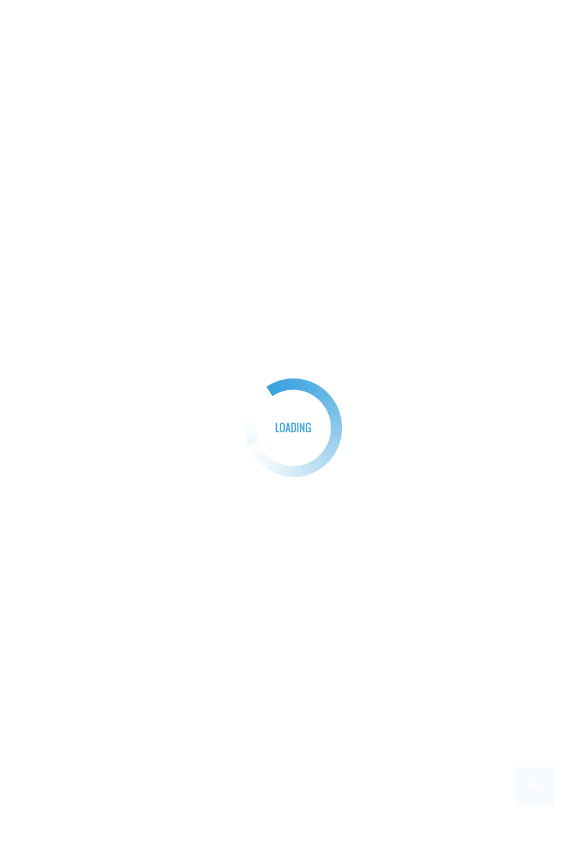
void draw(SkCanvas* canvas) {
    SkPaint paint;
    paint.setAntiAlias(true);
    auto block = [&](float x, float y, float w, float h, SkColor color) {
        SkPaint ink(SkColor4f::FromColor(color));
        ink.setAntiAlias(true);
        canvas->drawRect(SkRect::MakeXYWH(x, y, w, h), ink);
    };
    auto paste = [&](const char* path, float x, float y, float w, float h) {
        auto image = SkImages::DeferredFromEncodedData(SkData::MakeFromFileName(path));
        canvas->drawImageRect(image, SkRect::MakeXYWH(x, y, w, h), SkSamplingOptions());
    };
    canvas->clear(SK_ColorWHITE);
    paste("pic1.png", 245, 378, 97, 99);
    block(516, 767, 38, 38, SkColorSetRGB(247, 251, 254));
    paste("pic2.png", 529, 781, 12, 8);
}
